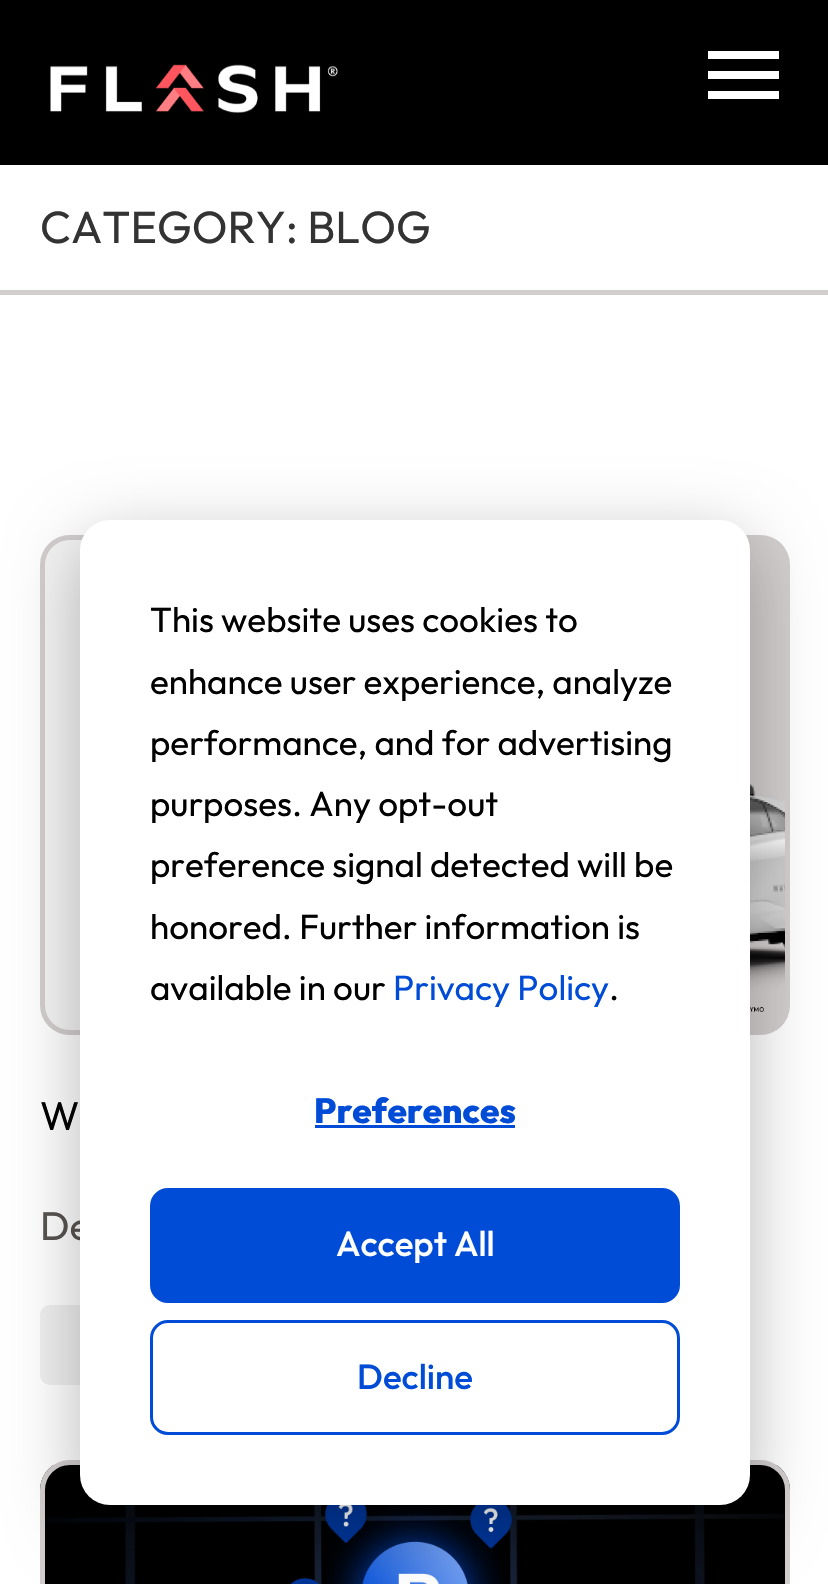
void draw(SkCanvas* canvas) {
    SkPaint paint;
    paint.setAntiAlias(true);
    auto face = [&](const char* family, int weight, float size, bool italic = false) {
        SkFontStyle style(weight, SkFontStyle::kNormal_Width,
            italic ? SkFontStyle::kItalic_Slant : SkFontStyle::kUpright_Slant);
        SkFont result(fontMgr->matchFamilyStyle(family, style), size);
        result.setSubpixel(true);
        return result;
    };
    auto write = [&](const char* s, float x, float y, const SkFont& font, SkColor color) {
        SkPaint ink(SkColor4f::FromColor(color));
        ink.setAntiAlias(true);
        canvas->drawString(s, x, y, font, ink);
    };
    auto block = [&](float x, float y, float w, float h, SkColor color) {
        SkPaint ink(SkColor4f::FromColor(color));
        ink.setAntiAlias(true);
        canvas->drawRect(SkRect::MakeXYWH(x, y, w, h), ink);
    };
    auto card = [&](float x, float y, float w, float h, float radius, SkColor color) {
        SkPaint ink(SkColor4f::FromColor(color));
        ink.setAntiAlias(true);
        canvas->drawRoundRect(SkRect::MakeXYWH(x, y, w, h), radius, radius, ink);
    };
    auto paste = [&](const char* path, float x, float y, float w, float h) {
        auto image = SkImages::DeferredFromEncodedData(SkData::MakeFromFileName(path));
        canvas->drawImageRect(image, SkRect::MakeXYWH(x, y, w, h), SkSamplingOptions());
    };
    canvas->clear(SK_ColorWHITE);
    block(0, 0, 828, 165, SK_ColorBLACK);
    paste("pic1.png", 50, 64, 288, 49);
    paint.setColor(SK_ColorWHITE);
    canvas->drawPath(SkPathBuilder().moveTo(708, 99).lineTo(708, 91).lineTo(779, 91).lineTo(779, 99).close().moveTo(708, 79).lineTo(708, 71).lineTo(779, 71).lineTo(779, 79).close().moveTo(708, 59).lineTo(708, 51).lineTo(779, 51).lineTo(779, 59).close().detach(), paint);
    block(0, 290, 828, 5, SkColorSetRGB(210, 206, 205));
    auto kFont1 = face("Outfit", 400, 45);
    write("CATEGORY: BLOG", 40, 243, kFont1, SkColorSetRGB(51, 51, 51));
    paste("pic2.png", 45, 537, 740, 493);
    paint.setStyle(SkPaint::kStroke_Style);
    paint.setStrokeWidth(5);
    paint.setColor(SkColorSetRGB(210, 206, 205));
    canvas->drawRoundRect(SkRect::MakeXYWH(42.5f, 537.5f, 745, 495), 27.5f, 27.5f, paint);
    auto kFont2 = face("Outfit", 400, 40);
    write("W", 40, 1130, kFont2, SK_ColorBLACK);
    write("De", 40, 1240, kFont2, SkColorSetRGB(88, 84, 82));
    card(40, 1305, 295, 80, 10, SkColorSetRGB(239, 239, 239));
    paste("pic3.png", 40, 1465, 750, 119);
    canvas->drawRoundRect(SkRect::MakeXYWH(42.5f, 1462.5f, 745, 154), 27.5f, 27.5f, paint);
    paint.setStyle(SkPaint::kFill_Style);
    paint.setColor(SkColorSetARGB(71, 0, 0, 0));
    paint.setMaskFilter(SkMaskFilter::MakeBlur(kNormal_SkBlurStyle, 35));
    canvas->drawRoundRect(SkRect::MakeXYWH(80, 540, 670, 985), 30, 30, paint);
    paint.setMaskFilter(nullptr);
    card(80, 520, 670, 985, 30, SK_ColorWHITE);
    auto kFont3 = face("Outfit", 400, 35);
    write("This website uses cookies to", 150, 632, kFont3, SK_ColorBLACK);
    write("enhance user experience, analyze", 150, 694, kFont3, SK_ColorBLACK);
    write("performance, and for advertising", 150, 755, kFont3, SK_ColorBLACK);
    write("purposes. Any opt-out", 150, 816, kFont3, SK_ColorBLACK);
    write("preference signal detected will be", 150, 877, kFont3, SK_ColorBLACK);
    write("honored. Further information is", 150, 939, kFont3, SK_ColorBLACK);
    write("available in our", 150, 1000, kFont3, SK_ColorBLACK);
    write("Privacy Policy", 393, 1000, kFont3, SkColorSetRGB(0, 76, 215));
    write(".", 609, 1000, kFont3, SK_ColorBLACK);
    auto kFont4 = face("Outfit", 800, 35);
    write("Preferences", 314, 1123, kFont4, SkColorSetRGB(0, 76, 215));
    block(315, 1125, 200, 3, SkColorSetRGB(0, 76, 215));
    paint.setColor(SkColorSetRGB(0, 76, 215));
    canvas->drawRoundRect(SkRect::MakeXYWH(151.5f, 1189.5f, 527, 112), 16.5f, 16.5f, paint);
    paint.setStyle(SkPaint::kStroke_Style);
    paint.setStrokeWidth(3);
    canvas->drawRoundRect(SkRect::MakeXYWH(151.5f, 1189.5f, 527, 112), 16.5f, 16.5f, paint);
    auto kFont5 = face("Outfit", 500, 35);
    write("Accept All", 336, 1256, kFont5, SK_ColorWHITE);
    canvas->drawRoundRect(SkRect::MakeXYWH(151.5f, 1321.5f, 527, 112), 16.5f, 16.5f, paint);
    write("Decline", 357, 1389, kFont5, SkColorSetRGB(0, 76, 215));
}
